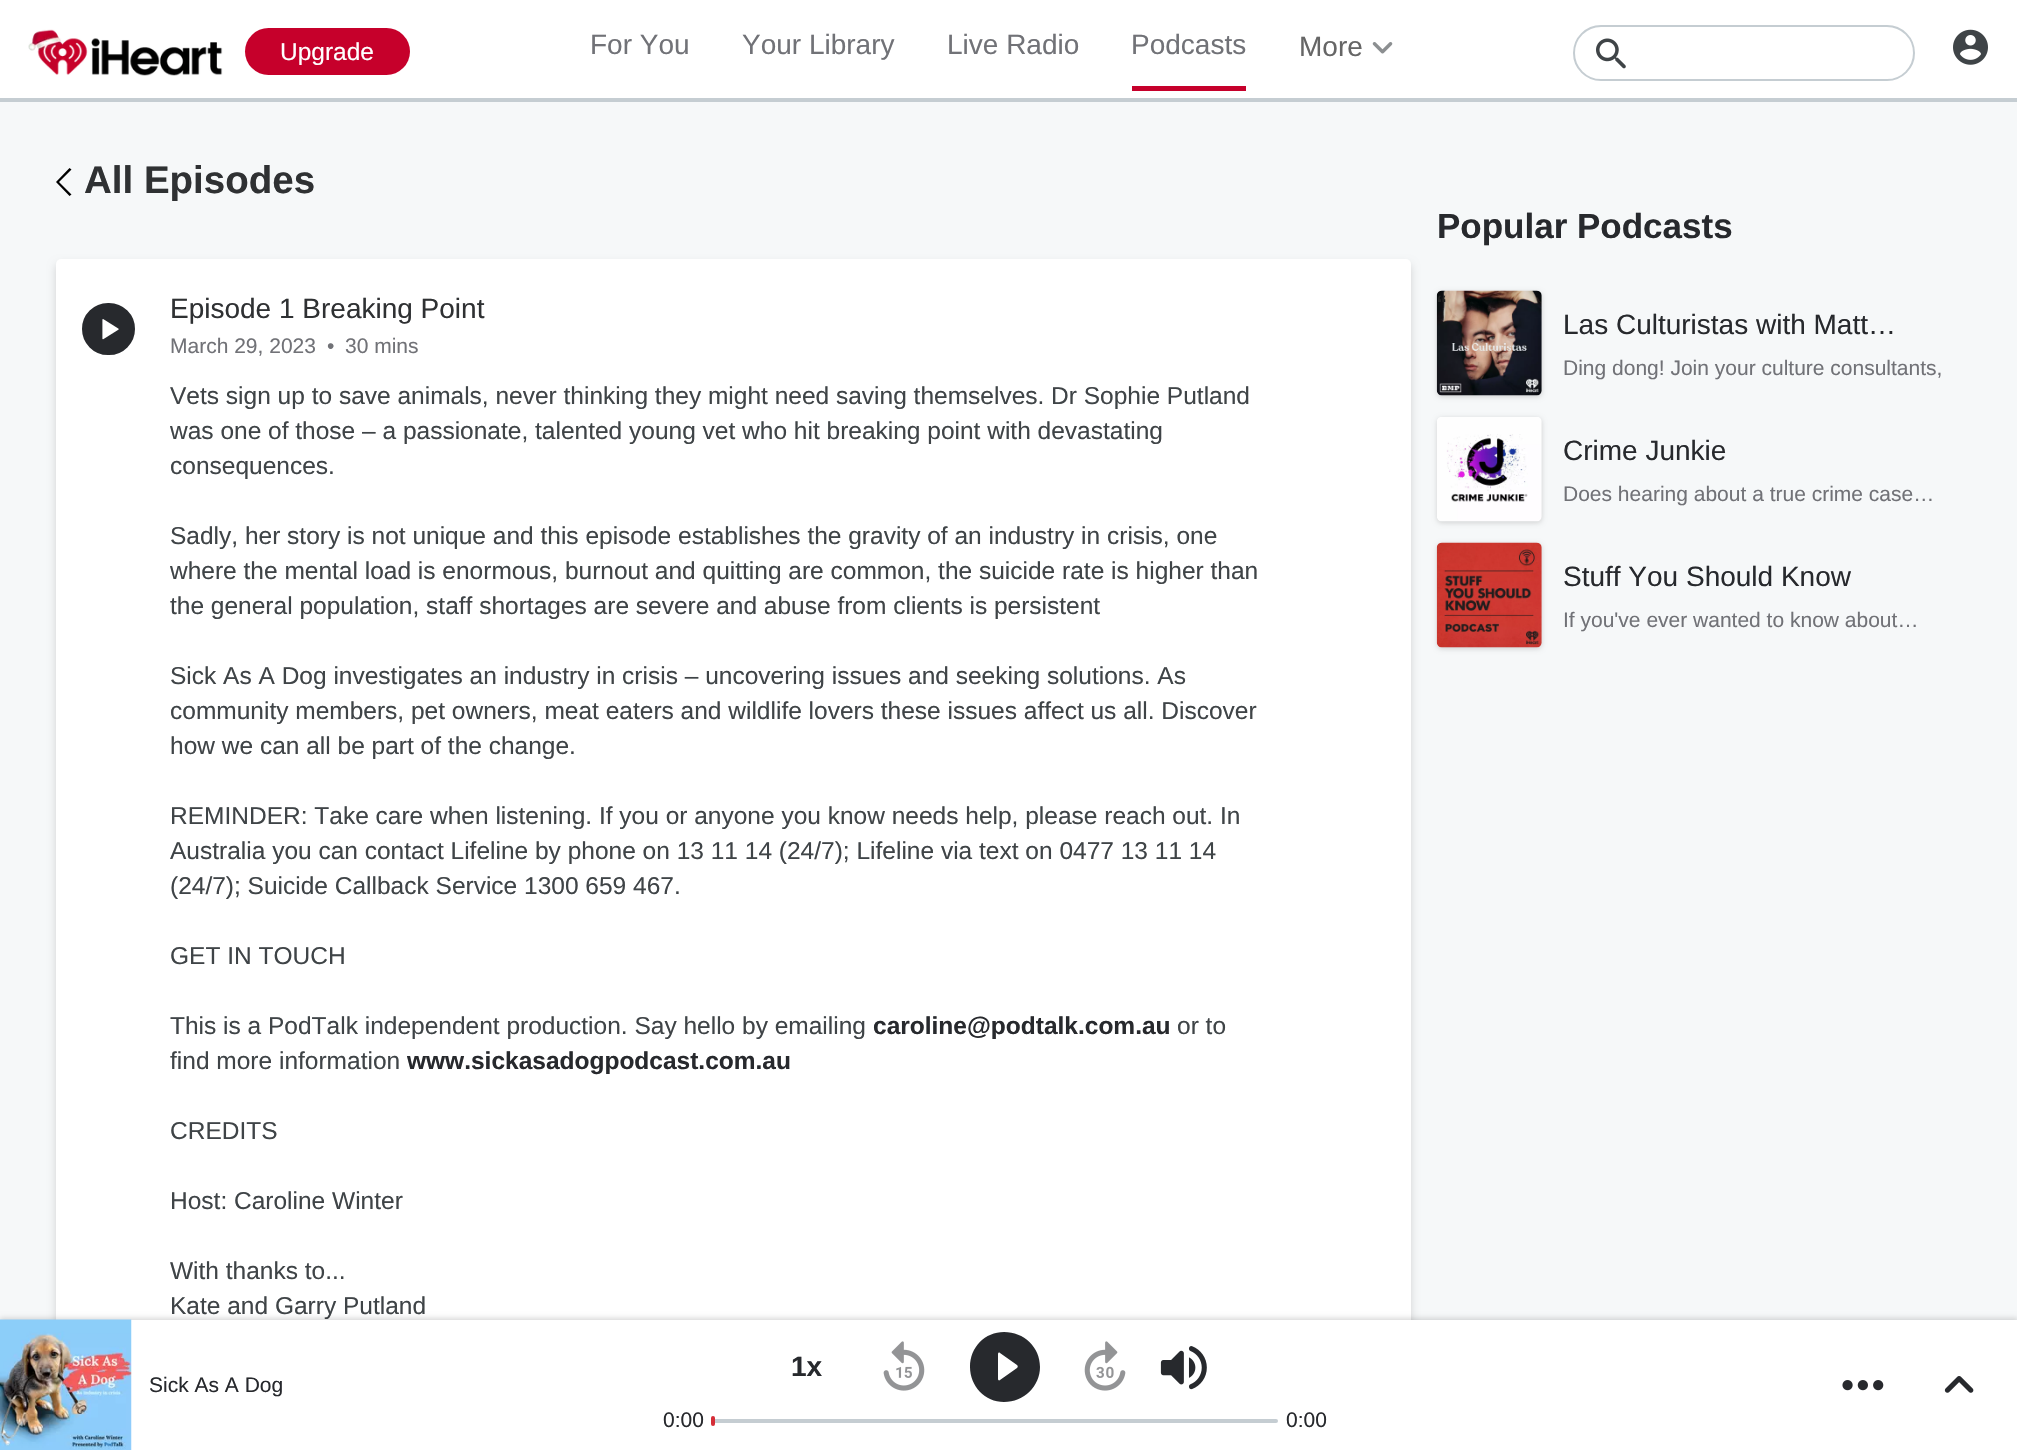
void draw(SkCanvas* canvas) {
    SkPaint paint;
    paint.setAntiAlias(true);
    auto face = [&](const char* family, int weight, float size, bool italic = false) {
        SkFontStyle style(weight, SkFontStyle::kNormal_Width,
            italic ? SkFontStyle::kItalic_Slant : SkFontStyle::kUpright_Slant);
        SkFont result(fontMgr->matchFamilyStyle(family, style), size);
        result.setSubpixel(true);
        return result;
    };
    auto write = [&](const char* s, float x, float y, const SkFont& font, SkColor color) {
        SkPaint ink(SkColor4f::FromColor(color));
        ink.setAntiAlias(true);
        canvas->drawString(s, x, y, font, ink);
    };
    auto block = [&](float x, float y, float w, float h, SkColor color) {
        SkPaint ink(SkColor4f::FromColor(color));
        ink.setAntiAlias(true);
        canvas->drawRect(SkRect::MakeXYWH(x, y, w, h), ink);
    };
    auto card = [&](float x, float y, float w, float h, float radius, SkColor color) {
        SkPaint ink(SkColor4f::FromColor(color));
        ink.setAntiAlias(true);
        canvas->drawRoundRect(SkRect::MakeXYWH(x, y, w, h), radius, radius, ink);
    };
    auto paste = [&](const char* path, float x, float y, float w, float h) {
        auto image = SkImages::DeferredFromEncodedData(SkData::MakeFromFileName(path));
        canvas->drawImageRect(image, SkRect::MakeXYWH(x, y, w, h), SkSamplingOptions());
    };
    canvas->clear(SkColorSetRGB(246, 248, 249));
    block(0, 0, 2017, 98, SK_ColorWHITE);
    block(0, 98, 2017, 4, SkColorSetRGB(197, 205, 210));
    paste("pic1.png", 28, 29, 195, 47);
    card(245, 28, 165, 47, 23.5f, SkColorSetRGB(198, 0, 43));
    auto kFont1 = face("Liberation Sans", 400, 24.5f);
    write("Upgrade", 280, 60, kFont1, SK_ColorWHITE);
    auto kFont2 = face("Liberation Sans", 400, 28);
    write("For You", 590, 54, kFont2, SkColorSetRGB(113, 114, 119));
    write("Your Library", 742, 54, kFont2, SkColorSetRGB(113, 114, 119));
    write("Live Radio", 947, 54, kFont2, SkColorSetRGB(113, 114, 119));
    write("Podcasts", 1131, 54, kFont2, SkColorSetRGB(113, 114, 119));
    block(1132, 86, 114, 5, SkColorSetRGB(198, 0, 43));
    write("More", 1299, 56, kFont2, SkColorSetRGB(102, 102, 102));
    paste("pic2.png", 1372, 42, 21, 12);
    paint.setStyle(SkPaint::kStroke_Style);
    paint.setStrokeWidth(2);
    paint.setColor(SkColorSetRGB(197, 205, 210));
    canvas->drawRoundRect(SkRect::MakeXYWH(1574, 26, 340, 54), 27, 27, paint);
    paste("pic3.png", 1596, 38, 30, 31);
    paste("pic4.png", 1953, 29, 35, 36);
    paint.setStyle(SkPaint::kFill_Style);
    paint.setColor(SK_ColorBLACK);
    canvas->drawPath(SkPathBuilder().moveTo(69.5f, 168).lineTo(56, 182).lineTo(69.5f, 196).lineTo(71.5f, 194.5f).lineTo(59, 182).lineTo(71.5f, 169.5f).close().detach(), paint);
    auto kFont3 = face("Liberation Sans", 700, 38.5f);
    write("All Episodes", 84, 193, kFont3, SkColorSetRGB(47, 49, 51));
    paint.setColor(SkColorSetARGB(38, 0, 0, 0));
    paint.setMaskFilter(SkMaskFilter::MakeBlur(kNormal_SkBlurStyle, 4.5f));
    canvas->drawRoundRect(SkRect::MakeXYWH(56, 264, 1355, 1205), 5, 5, paint);
    paint.setMaskFilter(nullptr);
    card(56, 259, 1355, 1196, 5, SK_ColorWHITE);
    paint.setColor(SkColorSetRGB(39, 41, 45));
    canvas->drawRoundRect(SkRect::MakeXYWH(83, 304, 51, 50), 25, 25, paint);
    paint.setStyle(SkPaint::kStroke_Style);
    canvas->drawRoundRect(SkRect::MakeXYWH(83, 304, 51, 50), 25, 25, paint);
    paste("pic5.png", 102, 319, 17, 21);
    write("Episode 1 Breaking Point", 170, 318, kFont2, SkColorSetRGB(47, 49, 51));
    auto kFont4 = face("Liberation Sans", 400, 21);
    write("March 29, 2023", 170, 353, kFont4, SkColorSetRGB(113, 114, 119));
    write("•", 327, 353, kFont4, SkColorSetRGB(113, 114, 119));
    write("30 mins", 345, 353, kFont4, SkColorSetRGB(113, 114, 119));
    write("Vets sign up to save animals, never thinking they might need saving themselves. Dr Sophie Putland", 170, 404, kFont1, SkColorSetRGB(63, 68, 71));
    write("was one of those – a passionate, talented young vet who hit breaking point with devastating", 170, 439, kFont1, SkColorSetRGB(63, 68, 71));
    write("consequences.", 170, 474, kFont1, SkColorSetRGB(63, 68, 71));
    write("Sadly, her story is not unique and this episode establishes the gravity of an industry in crisis, one", 170, 544, kFont1, SkColorSetRGB(63, 68, 71));
    write("where the mental load is enormous, burnout and quitting are common, the suicide rate is higher than", 170, 579, kFont1, SkColorSetRGB(63, 68, 71));
    write("the general population, staff shortages are severe and abuse from clients is persistent", 170, 614, kFont1, SkColorSetRGB(63, 68, 71));
    write("Sick As A Dog investigates an industry in crisis – uncovering issues and seeking solutions. As", 170, 684, kFont1, SkColorSetRGB(63, 68, 71));
    write("community members, pet owners, meat eaters and wildlife lovers these issues affect us all. Discover", 170, 719, kFont1, SkColorSetRGB(63, 68, 71));
    write("how we can all be part of the change.", 170, 754, kFont1, SkColorSetRGB(63, 68, 71));
    write("REMINDER: Take care when listening. If you or anyone you know needs help, please reach out. In", 170, 824, kFont1, SkColorSetRGB(63, 68, 71));
    write("Australia you can contact Lifeline by phone on 13 11 14 (24/7); Lifeline via text on 0477 13 11 14", 170, 859, kFont1, SkColorSetRGB(63, 68, 71));
    write("(24/7); Suicide Callback Service 1300 659 467.", 170, 894, kFont1, SkColorSetRGB(63, 68, 71));
    write("GET IN TOUCH", 170, 964, kFont1, SkColorSetRGB(63, 68, 71));
    write("This is a PodTalk independent production. Say hello by emailing", 170, 1034, kFont1, SkColorSetRGB(63, 68, 71));
    auto kFont5 = face("Liberation Sans", 700, 24.5f);
    write("caroline@podtalk.com.au", 873, 1034, kFont5, SkColorSetRGB(39, 41, 45));
    write("or to", 1177, 1034, kFont1, SkColorSetRGB(63, 68, 71));
    write("find more information", 170, 1069, kFont1, SkColorSetRGB(63, 68, 71));
    write("www.sickasadogpodcast.com.au", 407, 1069, kFont5, SkColorSetRGB(39, 41, 45));
    write("CREDITS", 170, 1139, kFont1, SkColorSetRGB(63, 68, 71));
    write("Host: Caroline Winter", 170, 1209, kFont1, SkColorSetRGB(63, 68, 71));
    write("With thanks to...", 170, 1279, kFont1, SkColorSetRGB(63, 68, 71));
    write("Kate and Garry Putland", 170, 1314, kFont1, SkColorSetRGB(63, 68, 71));
    auto kFont6 = face("Liberation Sans", 700, 35);
    write("Popular Podcasts", 1437, 238, kFont6, SkColorSetRGB(39, 41, 45));
    paint.setStyle(SkPaint::kFill_Style);
    paint.setColor(SkColorSetARGB(38, 0, 0, 0));
    paint.setMaskFilter(SkMaskFilter::MakeBlur(kNormal_SkBlurStyle, 2.5f));
    canvas->drawRoundRect(SkRect::MakeXYWH(1437, 292, 105, 105), 5, 5, paint);
    paint.setMaskFilter(nullptr);
    paste("pic6.png", 1436, 290, 106, 106);
    write("“", 1437, 315, kFont2, SkColorSetRGB(34, 35, 34));
    write("Las Culturistas with Matt…", 1563, 334, kFont2, SkColorSetRGB(39, 41, 45));
    write("Ding dong! Join your culture consultants,", 1563, 375, kFont4, SkColorSetRGB(113, 114, 119));
    paint.setMaskFilter(SkMaskFilter::MakeBlur(kNormal_SkBlurStyle, 2.5f));
    canvas->drawRoundRect(SkRect::MakeXYWH(1437, 418, 105, 105), 5, 5, paint);
    paint.setMaskFilter(nullptr);
    paste("pic7.png", 1437, 417, 105, 105);
    write("Crime Junkie", 1563, 460, kFont2, SkColorSetRGB(39, 41, 45));
    write("Does hearing about a true crime case…", 1563, 501, kFont4, SkColorSetRGB(113, 114, 119));
    paint.setMaskFilter(SkMaskFilter::MakeBlur(kNormal_SkBlurStyle, 2.5f));
    canvas->drawRoundRect(SkRect::MakeXYWH(1437, 544, 105, 105), 5, 5, paint);
    paint.setMaskFilter(nullptr);
    paste("pic8.png", 1436, 542, 106, 106);
    write("Stuff You Should Know", 1563, 586, kFont2, SkColorSetRGB(39, 41, 45));
    write("If you've ever wanted to know about…", 1563, 627, kFont4, SkColorSetRGB(113, 114, 119));
    paint.setMaskFilter(SkMaskFilter::MakeBlur(kNormal_SkBlurStyle, 2.5f));
    canvas->drawRect(SkRect::MakeXYWH(0, 1318, 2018, 131), paint);
    paint.setMaskFilter(nullptr);
    block(131, 1320, 1886, 130, SK_ColorWHITE);
    paste("pic9.png", 0, 1319, 132, 131);
    write("Sick As A Dog", 149, 1392, kFont4, SkColorSetRGB(39, 41, 45));
    auto kFont7 = face("Liberation Sans", 700, 28);
    write("1x", 791, 1376, kFont7, SkColorSetRGB(39, 41, 45));
    paste("pic10.png", 883, 1341, 42, 50);
    paint.setColor(SkColorSetRGB(39, 41, 45));
    canvas->drawPath(SkPathBuilder().moveTo(1004, 1332).cubicTo(985, 1332, 970, 1347, 970, 1367).cubicTo(970, 1386, 985, 1402, 1004, 1402).cubicTo(1024, 1402, 1040, 1386, 1040, 1367).cubicTo(1040, 1347, 1024, 1332, 1004, 1332).close().moveTo(998, 1379).lineTo(998, 1354).cubicTo(998, 1353, 999, 1352, 1000, 1353).lineTo(1017, 1365).cubicTo(1018, 1366, 1018, 1367, 1017, 1368).lineTo(1000, 1380).cubicTo(999, 1381, 998, 1380, 998, 1379).close().detach(), paint);
    paste("pic11.png", 1084, 1341, 42, 50);
    paste("pic12.png", 1160, 1346, 47, 44);
    write("0:00", 663, 1427, kFont4, SkColorSetRGB(39, 41, 45));
    card(712, 1419, 566, 4, 2, SkColorSetRGB(197, 205, 210));
    card(711, 1416, 4, 10, 2, SkColorSetRGB(213, 45, 55));
    write("0:00", 1286, 1427, kFont4, SkColorSetRGB(39, 41, 45));
    paste("pic13.png", 1842, 1380, 42, 11);
    paste("pic14.png", 1944, 1376, 30, 17);
}
